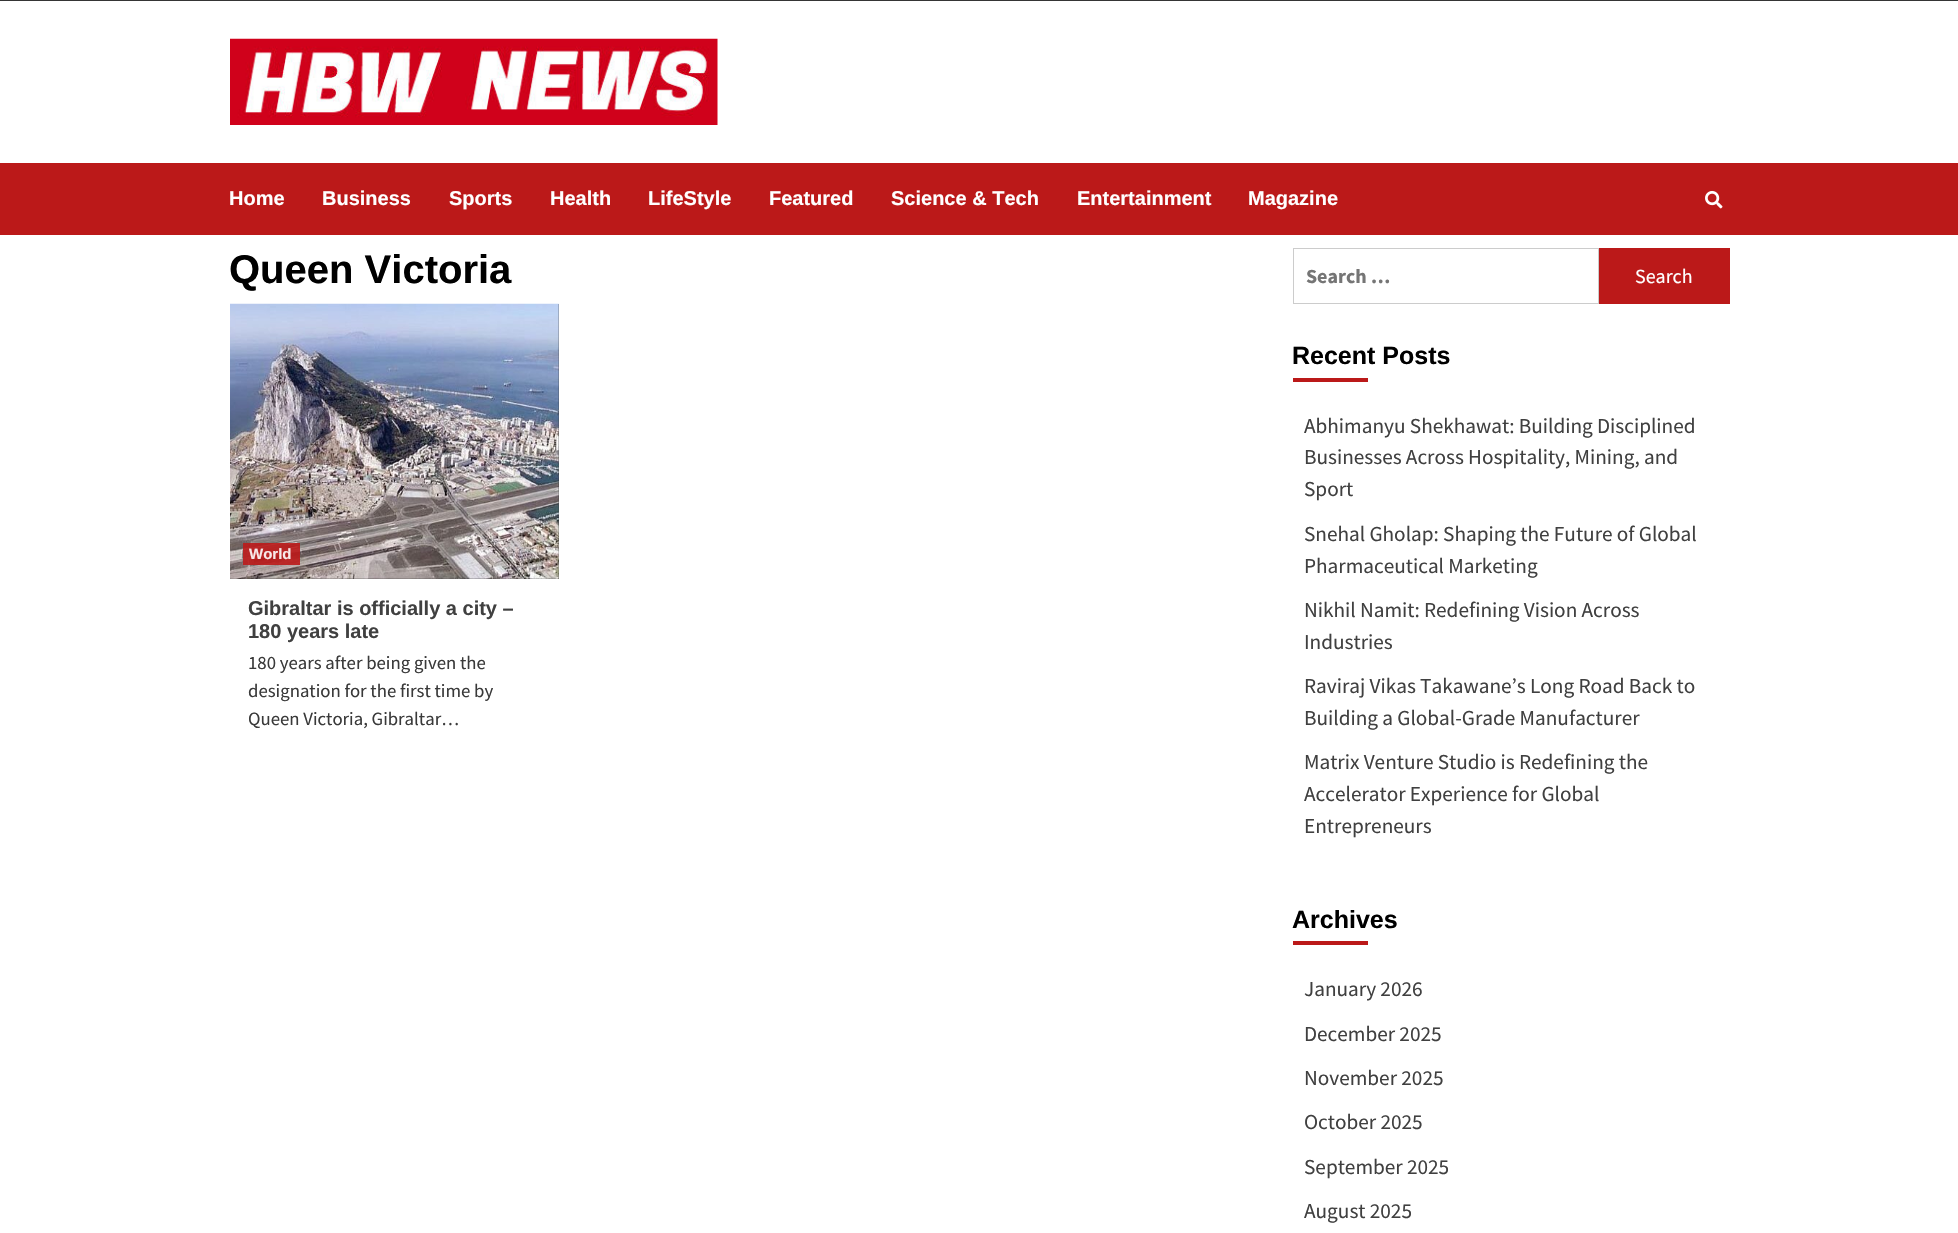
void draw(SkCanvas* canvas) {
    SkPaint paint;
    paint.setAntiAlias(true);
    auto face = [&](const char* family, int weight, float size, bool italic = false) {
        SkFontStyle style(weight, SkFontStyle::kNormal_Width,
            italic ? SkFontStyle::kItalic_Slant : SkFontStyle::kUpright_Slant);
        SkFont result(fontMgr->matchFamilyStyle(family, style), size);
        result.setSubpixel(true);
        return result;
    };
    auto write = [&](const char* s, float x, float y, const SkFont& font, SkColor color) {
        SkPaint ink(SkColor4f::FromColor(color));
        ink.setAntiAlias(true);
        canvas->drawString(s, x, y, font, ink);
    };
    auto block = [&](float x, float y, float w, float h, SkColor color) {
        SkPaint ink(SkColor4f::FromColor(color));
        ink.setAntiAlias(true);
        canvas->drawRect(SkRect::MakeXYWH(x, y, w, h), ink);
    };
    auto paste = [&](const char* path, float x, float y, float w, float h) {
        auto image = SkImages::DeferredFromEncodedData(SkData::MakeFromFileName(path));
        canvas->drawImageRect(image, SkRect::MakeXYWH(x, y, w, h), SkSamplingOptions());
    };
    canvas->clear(SK_ColorWHITE);
    block(0, 0, 1958, 1, SkColorSetRGB(53, 53, 53));
    paste("pic1.png", 230, 38, 488, 87);
    block(0, 163, 1958, 72, SkColorSetRGB(187, 25, 25));
    auto kFont1 = face("Liberation Sans", 700, 20);
    write("Home", 229, 205, kFont1, SK_ColorWHITE);
    write("Business", 322, 205, kFont1, SK_ColorWHITE);
    write("Sports", 449, 205, kFont1, SK_ColorWHITE);
    write("Health", 550, 205, kFont1, SK_ColorWHITE);
    write("LifeStyle", 648, 205, kFont1, SK_ColorWHITE);
    write("Featured", 769, 205, kFont1, SK_ColorWHITE);
    write("Science & Tech", 891, 205, kFont1, SK_ColorWHITE);
    write("Entertainment", 1077, 205, kFont1, SK_ColorWHITE);
    write("Magazine", 1248, 205, kFont1, SK_ColorWHITE);
    paste("pic2.png", 1705, 190, 18, 19);
    auto kFont2 = face("Liberation Sans", 700, 40);
    write("Queen Victoria", 229, 283, kFont2, SK_ColorBLACK);
    block(230, 304, 329, 275, SkColorSetRGB(51, 51, 51));
    paste("pic3.png", 230, 303, 329, 276);
    block(243, 543, 57, 22, SkColorSetARGB(230, 187, 25, 25));
    auto kFont3 = face("Liberation Sans", 700, 15);
    write("World", 249, 559, kFont3, SkColorSetRGB(248, 233, 233));
    write("Gibraltar is officially a city –", 248, 615, kFont1, SkColorSetRGB(64, 64, 64));
    write("180 years late", 248, 638, kFont1, SkColorSetRGB(64, 64, 64));
    auto kFont4 = face("Source Sans Pro", 400, 18.75f);
    write("180 years after being given the", 248, 669, kFont4, SkColorSetRGB(58, 58, 58));
    write("designation for the first time by", 248, 697, kFont4, SkColorSetRGB(58, 58, 58));
    write("Queen Victoria, Gibraltar…", 248, 725, kFont4, SkColorSetRGB(58, 58, 58));
    paint.setStyle(SkPaint::kStroke_Style);
    paint.setStrokeWidth(1);
    paint.setColor(SkColorSetRGB(204, 204, 204));
    canvas->drawRect(SkRect::MakeXYWH(1293.5f, 248.5f, 305, 55), paint);
    auto kFont5 = face("Source Sans Pro", 700, 20);
    write("Search …", 1306, 283, kFont5, SkColorSetRGB(117, 117, 117));
    block(1599, 248, 131, 56, SkColorSetRGB(187, 25, 25));
    auto kFont6 = face("Source Sans Pro", 400, 20);
    write("Search", 1635, 283, kFont6, SK_ColorWHITE);
    auto kFont7 = face("Liberation Sans", 700, 25);
    write("Recent Posts", 1292, 364, kFont7, SK_ColorBLACK);
    block(1293, 378, 75, 4, SkColorSetRGB(187, 25, 25));
    auto kFont8 = face("Source Sans Pro", 400, 21.25f);
    write("Abhimanyu Shekhawat: Building Disciplined", 1304, 433, kFont8, SkColorSetRGB(64, 64, 64));
    write("Businesses Across Hospitality, Mining, and", 1304, 464, kFont8, SkColorSetRGB(64, 64, 64));
    write("Sport", 1304, 496, kFont8, SkColorSetRGB(64, 64, 64));
    write("Snehal Gholap: Shaping the Future of Global", 1304, 541, kFont8, SkColorSetRGB(64, 64, 64));
    write("Pharmaceutical Marketing", 1304, 573, kFont8, SkColorSetRGB(64, 64, 64));
    write("Nikhil Namit: Redefining Vision Across", 1304, 617, kFont8, SkColorSetRGB(64, 64, 64));
    write("Industries", 1304, 649, kFont8, SkColorSetRGB(64, 64, 64));
    write("Raviraj Vikas Takawane’s Long Road Back to", 1304, 693, kFont8, SkColorSetRGB(64, 64, 64));
    write("Building a Global-Grade Manufacturer", 1304, 725, kFont8, SkColorSetRGB(64, 64, 64));
    write("Matrix Venture Studio is Redefining the", 1304, 769, kFont8, SkColorSetRGB(64, 64, 64));
    write("Accelerator Experience for Global", 1304, 801, kFont8, SkColorSetRGB(64, 64, 64));
    write("Entrepreneurs", 1304, 833, kFont8, SkColorSetRGB(64, 64, 64));
    write("Archives", 1292, 928, kFont7, SK_ColorBLACK);
    block(1293, 941, 75, 4, SkColorSetRGB(187, 25, 25));
    write("January 2026", 1304, 996, kFont8, SkColorSetRGB(64, 64, 64));
    write("December 2025", 1304, 1041, kFont8, SkColorSetRGB(64, 64, 64));
    write("November 2025", 1304, 1085, kFont8, SkColorSetRGB(64, 64, 64));
    write("October 2025", 1304, 1129, kFont8, SkColorSetRGB(64, 64, 64));
    write("September 2025", 1304, 1174, kFont8, SkColorSetRGB(64, 64, 64));
    write("August 2025", 1304, 1218, kFont8, SkColorSetRGB(64, 64, 64));
}
